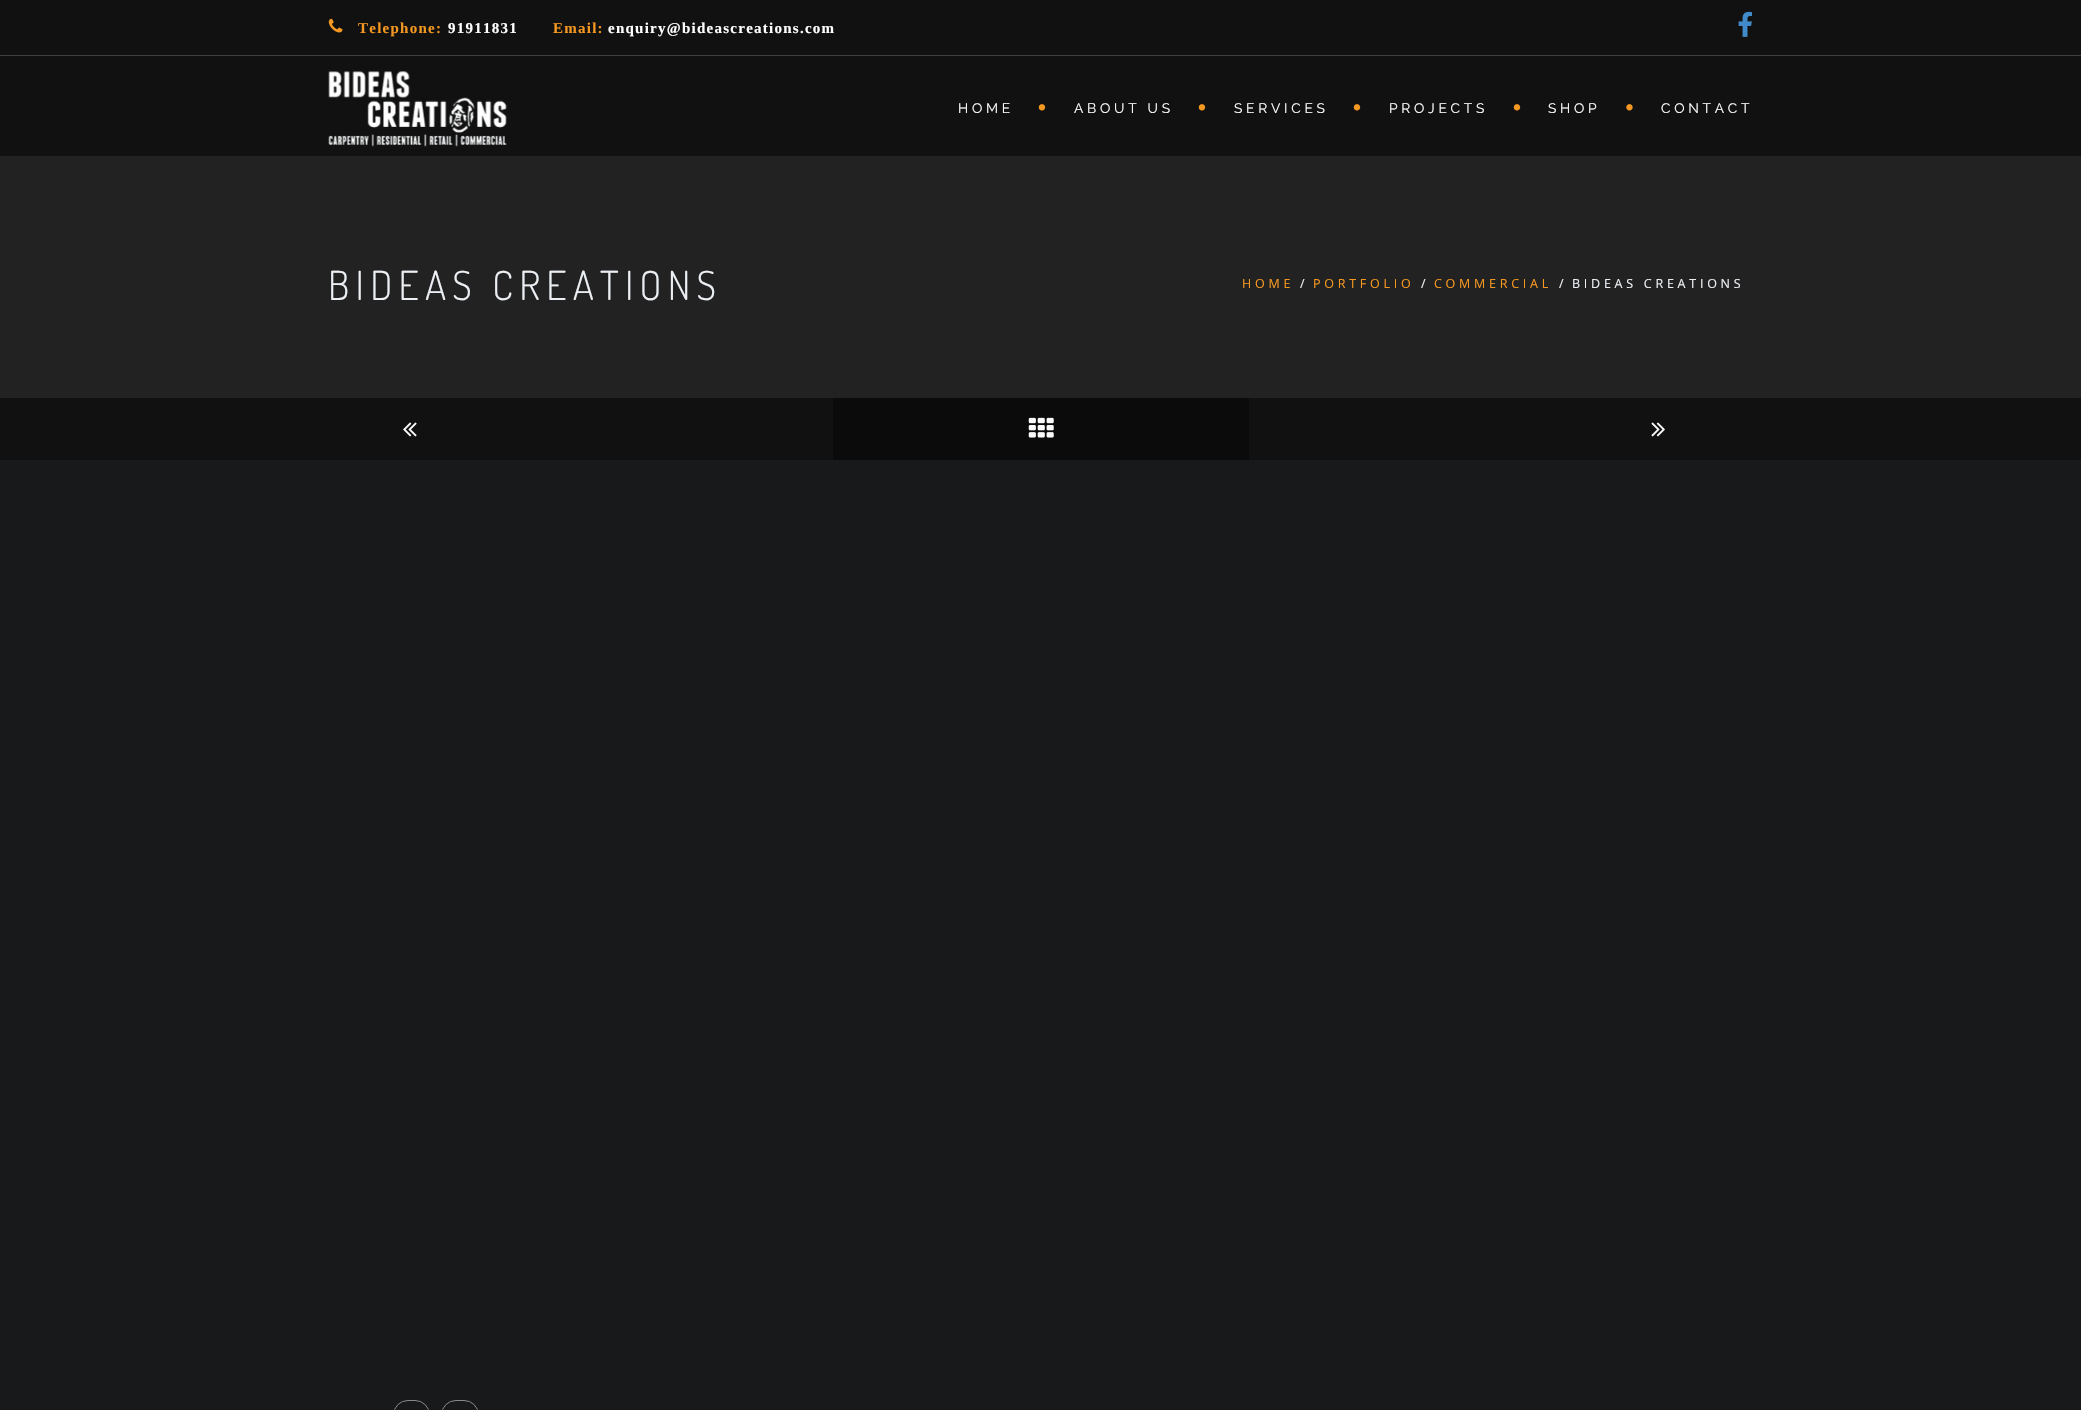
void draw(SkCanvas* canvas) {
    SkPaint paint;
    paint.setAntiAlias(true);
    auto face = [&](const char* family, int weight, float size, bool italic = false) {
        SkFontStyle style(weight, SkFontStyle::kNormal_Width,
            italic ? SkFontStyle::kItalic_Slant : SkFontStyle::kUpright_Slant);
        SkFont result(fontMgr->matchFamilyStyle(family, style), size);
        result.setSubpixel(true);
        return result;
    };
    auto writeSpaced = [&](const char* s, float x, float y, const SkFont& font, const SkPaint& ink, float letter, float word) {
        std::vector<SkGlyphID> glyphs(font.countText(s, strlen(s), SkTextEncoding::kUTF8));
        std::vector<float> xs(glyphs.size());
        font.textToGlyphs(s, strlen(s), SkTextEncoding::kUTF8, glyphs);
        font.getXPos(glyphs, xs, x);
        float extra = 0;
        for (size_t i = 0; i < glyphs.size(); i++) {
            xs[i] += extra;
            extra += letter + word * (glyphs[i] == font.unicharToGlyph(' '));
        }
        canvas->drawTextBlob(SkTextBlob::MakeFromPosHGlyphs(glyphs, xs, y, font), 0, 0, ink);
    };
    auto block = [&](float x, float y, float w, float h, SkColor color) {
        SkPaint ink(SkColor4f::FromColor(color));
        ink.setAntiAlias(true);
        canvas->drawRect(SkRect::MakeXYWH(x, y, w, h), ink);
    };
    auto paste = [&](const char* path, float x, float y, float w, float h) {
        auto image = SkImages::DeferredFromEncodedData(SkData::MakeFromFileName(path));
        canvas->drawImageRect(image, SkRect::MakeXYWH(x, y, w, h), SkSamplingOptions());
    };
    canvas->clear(SkColorSetRGB(34, 34, 34));
    block(0, 0, 2081, 156, SkColorSetRGB(17, 17, 17));
    block(0, 55, 2081, 1, SkColorSetRGB(65, 65, 65));
    paste("pic1.png", 328, 18, 15, 15);
    auto kFont1 = face("Liberation Serif", 700, 15);
    paint.setColor(SkColorSetRGB(245, 152, 33));
    writeSpaced("Telephone:", 358, 33, kFont1, paint, 1.25f, 0);
    paint.setColor(SK_ColorWHITE);
    writeSpaced("91911831", 448, 33, kFont1, paint, 1.25f, 0);
    paint.setColor(SkColorSetRGB(245, 152, 33));
    writeSpaced("Email:", 553, 33, kFont1, paint, 1.25f, 0);
    paint.setColor(SK_ColorWHITE);
    writeSpaced("enquiry@bideascreations.com", 608, 33, kFont1, paint, 1.25f, 0);
    paste("pic2.png", 1738, 11, 14, 26);
    paste("pic3.png", 328, 71, 179, 76);
    auto kFont2 = face("Raleway", 400, 13.75f);
    writeSpaced("HOME", 958, 113, kFont2, paint, 3.75f, 0);
    paste("pic4.png", 1038, 104, 8, 7);
    writeSpaced("ABOUT US", 1074, 113, kFont2, paint, 3.75f, 0);
    paste("pic4.png", 1198, 104, 8, 7);
    writeSpaced("SERVICES", 1234, 113, kFont2, paint, 3.75f, 0);
    paste("pic4.png", 1353, 104, 8, 7);
    writeSpaced("PROJECTS", 1389, 113, kFont2, paint, 3.75f, 0);
    paste("pic4.png", 1513, 104, 8, 7);
    writeSpaced("SHOP", 1548, 113, kFont2, paint, 3.75f, 0);
    paste("pic5.png", 1626, 104, 7, 7);
    writeSpaced("CONTACT", 1661, 113, kFont2, paint, 3.75f, 0);
    auto kFont3 = face("Dosis", 300, 40);
    paint.setColor(SkColorSetRGB(236, 239, 243));
    writeSpaced("BIDEAS CREATIONS", 328, 300, kFont3, paint, 6.25f, 0);
    auto kFont4 = face("Open Sans", 400, 12.5f);
    paint.setColor(SkColorSetRGB(245, 152, 33));
    writeSpaced("HOME", 1242, 288, kFont4, paint, 3.75f, 0);
    paint.setColor(SkColorSetRGB(236, 239, 243));
    writeSpaced("/", 1300, 288, kFont4, paint, 3.75f, 0);
    paint.setColor(SkColorSetRGB(245, 152, 33));
    writeSpaced("PORTFOLIO", 1313, 288, kFont4, paint, 3.75f, 0);
    paint.setColor(SkColorSetRGB(236, 239, 243));
    writeSpaced("/", 1421, 288, kFont4, paint, 3.75f, 0);
    paint.setColor(SkColorSetRGB(245, 152, 33));
    writeSpaced("COMMERCIAL", 1434, 288, kFont4, paint, 3.75f, 0);
    paint.setColor(SkColorSetRGB(236, 239, 243));
    writeSpaced("/", 1559, 288, kFont4, paint, 3.75f, 0);
    writeSpaced("BIDEAS CREATIONS", 1572, 288, kFont4, paint, 3.75f, 0);
    block(0, 398, 2081, 62, SkColorSetRGB(17, 17, 17));
    paste("pic6.png", 403, 422, 14, 15);
    block(833, 398, 416, 62, SkColorSetRGB(11, 11, 11));
    paste("pic7.png", 1028, 417, 26, 21);
    paste("pic8.png", 1651, 422, 14, 15);
    block(0, 460, 2081, 950, SkColorSetRGB(24, 25, 27));
    paint.setStyle(SkPaint::kStroke_Style);
    paint.setStrokeWidth(1);
    paint.setColor(SkColorSetRGB(136, 136, 136));
    canvas->drawRoundRect(SkRect::MakeXYWH(393.5f, 1400.5f, 36, 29), 18, 18, paint);
    canvas->drawRoundRect(SkRect::MakeXYWH(441.5f, 1400.5f, 37, 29), 18.5f, 18.5f, paint);
}
